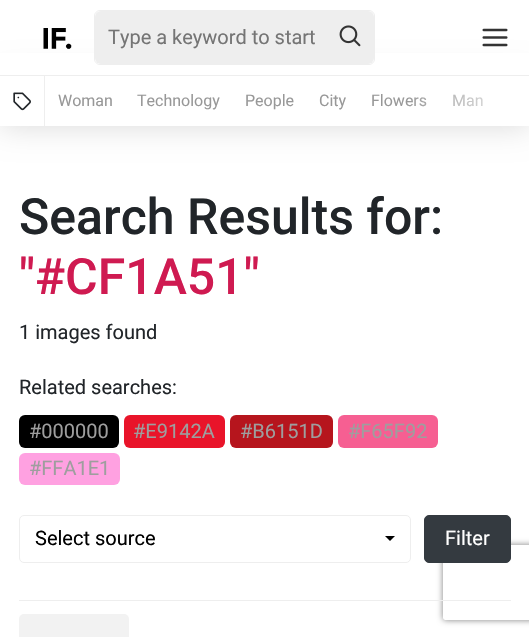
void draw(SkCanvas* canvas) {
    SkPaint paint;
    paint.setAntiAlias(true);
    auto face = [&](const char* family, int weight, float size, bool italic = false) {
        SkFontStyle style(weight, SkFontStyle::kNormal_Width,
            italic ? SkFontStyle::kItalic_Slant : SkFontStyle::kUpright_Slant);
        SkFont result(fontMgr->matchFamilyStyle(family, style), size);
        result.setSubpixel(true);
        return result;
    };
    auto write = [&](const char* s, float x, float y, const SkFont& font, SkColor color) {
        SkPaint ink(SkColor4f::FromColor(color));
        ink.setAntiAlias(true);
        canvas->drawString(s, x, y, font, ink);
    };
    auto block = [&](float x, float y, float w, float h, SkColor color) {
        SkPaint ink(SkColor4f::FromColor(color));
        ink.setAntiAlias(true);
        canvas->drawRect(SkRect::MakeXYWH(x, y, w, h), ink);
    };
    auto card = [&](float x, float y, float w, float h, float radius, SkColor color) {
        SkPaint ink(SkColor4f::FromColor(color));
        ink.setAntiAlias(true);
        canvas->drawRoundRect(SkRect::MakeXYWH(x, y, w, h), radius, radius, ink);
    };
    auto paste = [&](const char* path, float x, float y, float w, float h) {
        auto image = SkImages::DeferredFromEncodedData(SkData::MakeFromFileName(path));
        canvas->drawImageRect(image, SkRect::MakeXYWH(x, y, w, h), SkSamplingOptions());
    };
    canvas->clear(SK_ColorWHITE);
    paint.setColor(SkColorSetARGB(38, 0, 0, 0));
    paint.setMaskFilter(SkMaskFilter::MakeBlur(kNormal_SkBlurStyle, 15.5f));
    canvas->drawRect(SkRect::MakeXYWH(0, 76, 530, 50), paint);
    paint.setMaskFilter(nullptr);
    block(0, 53, 529, 22, SK_ColorWHITE);
    block(0, 75, 529, 1, SkColorSetRGB(238, 238, 238));
    paste("pic1.png", 43, 28, 29, 22);
    paint.setStyle(SkPaint::kStroke_Style);
    paint.setStrokeWidth(1);
    paint.setColor(SkColorSetRGB(238, 238, 238));
    canvas->drawRoundRect(SkRect::MakeXYWH(94.5f, 10.5f, 280, 54), 5.5f, 5.5f, paint);
    canvas->save();
    canvas->clipPath(SkPathBuilder().moveTo(100, 11).lineTo(369, 11).cubicTo(372, 11, 374, 13, 374, 16).lineTo(374, 59).cubicTo(374, 62, 372, 64, 369, 64).lineTo(100, 64).cubicTo(97, 64, 95, 62, 95, 59).lineTo(95, 16).cubicTo(95, 13, 97, 11, 100, 11).close().detach(), true);
    card(95, 11, 279, 53, 6, SkColorSetRGB(238, 238, 238));
    canvas->restore();
    auto kFont1 = face("Roboto", 400, 20);
    write("Type a keyword to start", 108, 44, kFont1, SkColorSetRGB(117, 117, 117));
    paste("pic2.png", 339, 25, 22, 22);
    paste("pic3.png", 482, 28, 26, 19);
    block(0, 76, 529, 50, SK_ColorWHITE);
    paste("pic4.png", 13, 92, 18, 19);
    block(44, 76, 1, 50, SkColorSetRGB(238, 238, 238));
    auto kFont2 = face("Roboto", 400, 16);
    write("Woman", 58, 106, kFont2, SkColorSetRGB(152, 152, 152));
    write("Technology", 137, 106, kFont2, SkColorSetRGB(152, 152, 152));
    write("People", 245, 106, kFont2, SkColorSetRGB(152, 152, 152));
    write("City", 319, 106, kFont2, SkColorSetRGB(152, 152, 152));
    write("Flowers", 371, 106, kFont2, SkColorSetRGB(152, 152, 152));
    write("Man", 452, 106, kFont2, SkColorSetRGB(152, 152, 152));
    paint.setStyle(SkPaint::kFill_Style);
    {
        const SkColor colors[] = {SkColorSetARGB(0, 255, 255, 255), SkColorSetARGB(128, 255, 255, 255), SkColorSetARGB(242, 255, 255, 255)};
        const float stops[] = {0, 0.56f, 1};
        const SkPoint ends[] = {{405, 101}, {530, 101}};
        paint.setShader(SkGradientShader::MakeLinear(ends, colors, stops, 3, SkTileMode::kClamp));
        paint.setAlpha(255);
    }
    canvas->drawRect(SkRect::MakeXYWH(409, 94, 74, 13), paint);
    auto kFont3 = face("Roboto", 500, 50);
    write("Search Results for:", 19, 234, kFont3, SkColorSetRGB(33, 37, 41));
    write("\"#CF1A51\"", 19, 294, kFont3, SkColorSetRGB(207, 26, 81));
    write("1 images found", 19, 339, kFont1, SkColorSetRGB(33, 37, 41));
    write("Related searches:", 19, 394, kFont1, SkColorSetRGB(33, 37, 41));
    card(19, 415, 100, 33, 6, SK_ColorBLACK);
    write("#000000", 29, 438, kFont1, SkColorSetRGB(158, 158, 158));
    card(124, 415, 101, 33, 6, SkColorSetRGB(233, 20, 42));
    write("#E9142A", 133, 438, kFont1, SkColorSetRGB(158, 158, 158));
    card(230, 415, 103, 33, 6, SkColorSetRGB(182, 21, 29));
    write("#B6151D", 240, 438, kFont1, SkColorSetRGB(158, 158, 158));
    card(338, 415, 100, 33, 6, SkColorSetRGB(246, 95, 146));
    write("#F65F92", 348, 438, kFont1, SkColorSetRGB(158, 158, 158));
    card(19, 453, 101, 32, 6, SkColorSetRGB(255, 161, 225));
    write("#FFA1E1", 29, 475, kFont1, SkColorSetRGB(158, 158, 158));
    paint.setStyle(SkPaint::kStroke_Style);
    paint.setShader(nullptr);
    paint.setColor(SkColorSetRGB(238, 238, 238));
    canvas->drawRoundRect(SkRect::MakeXYWH(19.5f, 515.5f, 391, 47), 4.5f, 4.5f, paint);
    write("Select source", 35, 545, kFont1, SK_ColorBLACK);
    paint.setStyle(SkPaint::kFill_Style);
    paint.setColor(SK_ColorBLACK);
    canvas->drawPath(SkPathBuilder().moveTo(385, 536).lineTo(395, 536).lineTo(390, 541).close().detach(), paint);
    canvas->save();
    canvas->clipPath(SkPathBuilder(SkPathFillType::kEvenOdd).moveTo(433, 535).lineTo(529, 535).lineTo(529, 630).lineTo(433, 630).close().moveTo(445.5f, 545).lineTo(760.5f, 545).cubicTo(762, 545, 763, 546, 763, 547.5f).lineTo(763, 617.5f).cubicTo(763, 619, 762, 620, 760.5f, 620).lineTo(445.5f, 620).cubicTo(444, 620, 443, 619, 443, 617.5f).lineTo(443, 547.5f).cubicTo(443, 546, 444, 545, 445.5f, 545).close().detach(), true);
    paint.setColor(SkColorSetRGB(128, 128, 128));
    paint.setMaskFilter(SkMaskFilter::MakeBlur(kNormal_SkBlurStyle, 3));
    canvas->drawRoundRect(SkRect::MakeXYWH(443, 545, 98, 75), 2.5f, 2.5f, paint);
    paint.setMaskFilter(nullptr);
    canvas->restore();
    paint.setColor(SkColorSetRGB(52, 58, 64));
    canvas->drawRoundRect(SkRect::MakeXYWH(424.5f, 515.5f, 86, 47), 4.5f, 4.5f, paint);
    paint.setStyle(SkPaint::kStroke_Style);
    canvas->drawRoundRect(SkRect::MakeXYWH(424.5f, 515.5f, 86, 47), 4.5f, 4.5f, paint);
    write("Filter", 445, 545, kFont1, SK_ColorWHITE);
    block(19, 600, 492, 1, SkColorSetRGB(238, 238, 238));
    card(19, 614, 110, 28, 5, SkColorSetRGB(242, 242, 242));
}
